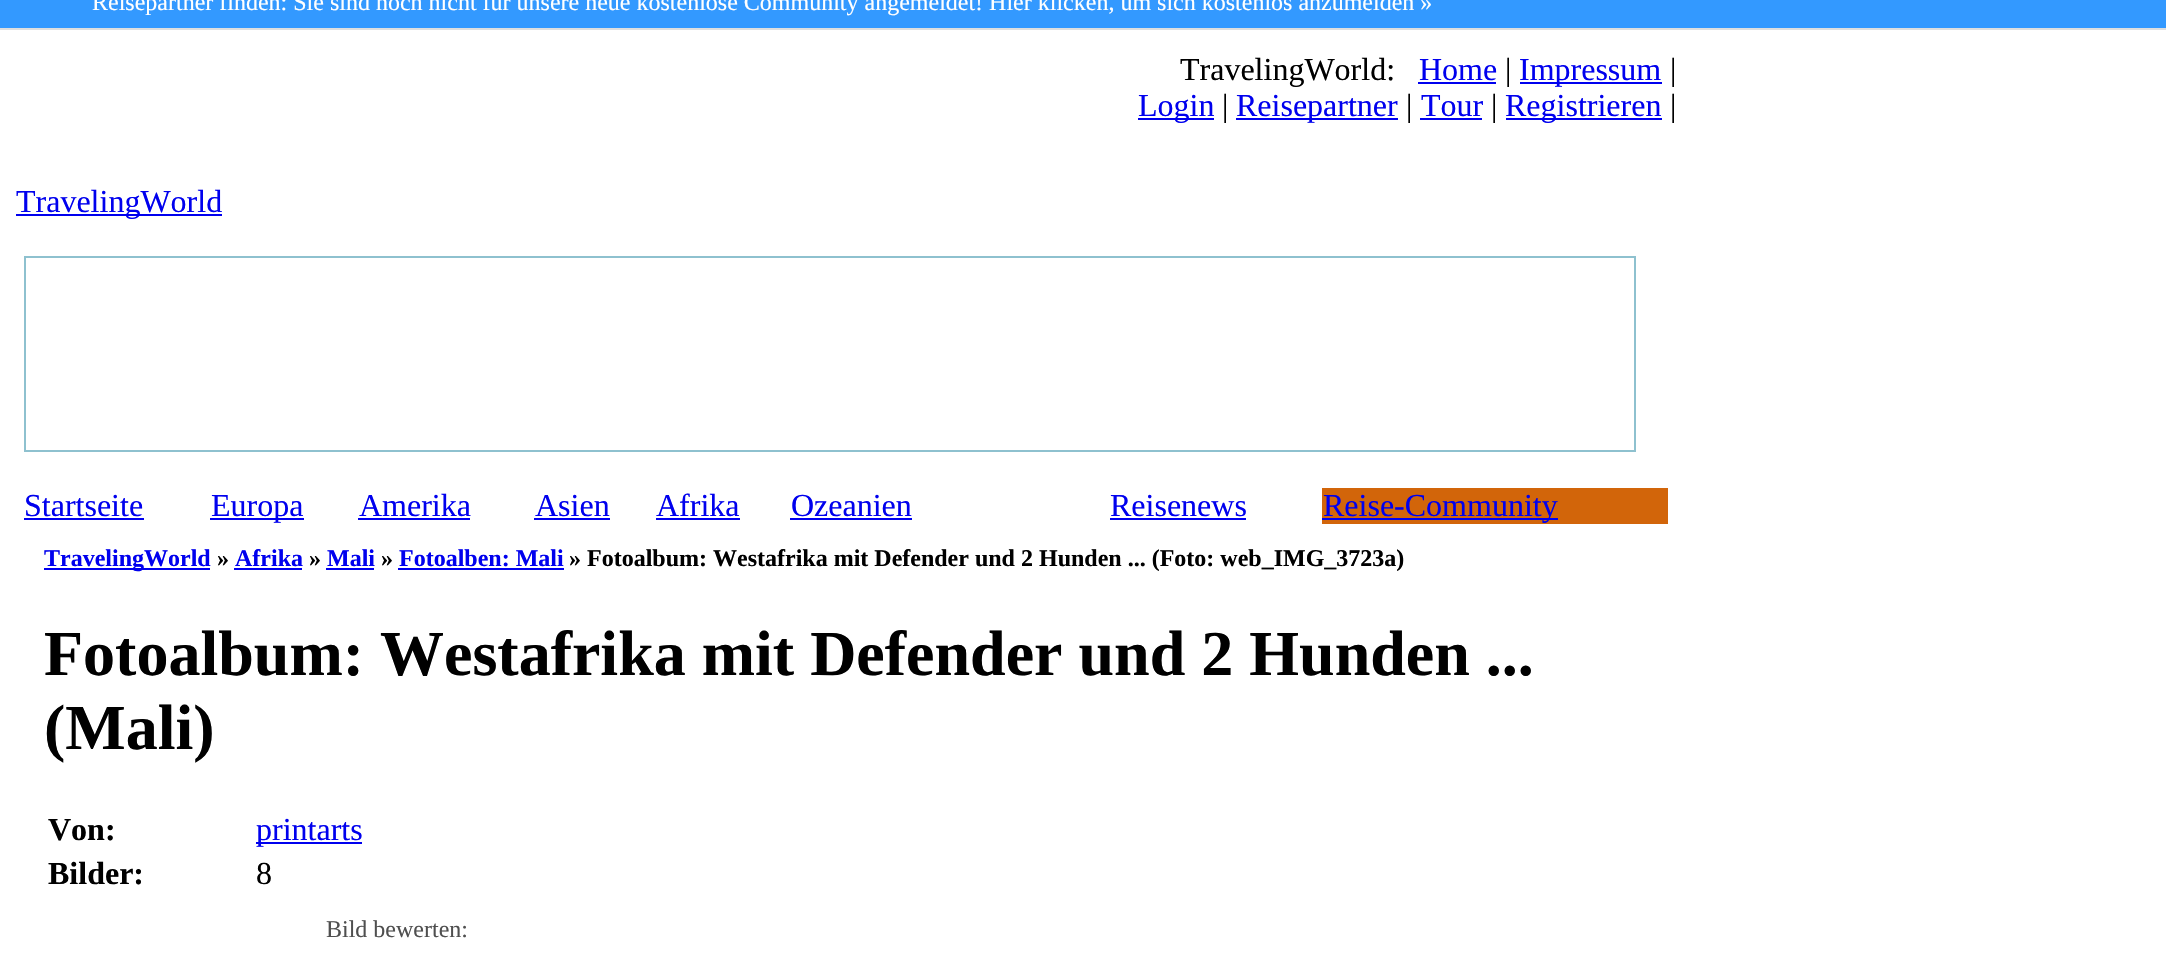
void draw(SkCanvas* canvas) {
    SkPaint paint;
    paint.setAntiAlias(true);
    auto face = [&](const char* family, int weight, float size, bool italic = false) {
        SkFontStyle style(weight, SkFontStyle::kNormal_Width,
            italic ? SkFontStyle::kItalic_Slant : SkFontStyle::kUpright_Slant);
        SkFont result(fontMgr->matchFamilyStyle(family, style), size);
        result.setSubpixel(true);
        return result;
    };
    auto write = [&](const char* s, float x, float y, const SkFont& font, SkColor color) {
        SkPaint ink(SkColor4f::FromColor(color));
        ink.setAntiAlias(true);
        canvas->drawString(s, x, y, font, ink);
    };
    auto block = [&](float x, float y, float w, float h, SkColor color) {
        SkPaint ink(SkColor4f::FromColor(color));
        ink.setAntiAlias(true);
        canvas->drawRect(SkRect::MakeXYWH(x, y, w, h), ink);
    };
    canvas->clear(SK_ColorWHITE);
    block(0, 0, 2166, 28, SkColorSetRGB(51, 153, 255));
    block(0, 28, 2166, 2, SkColorSetRGB(223, 223, 223));
    auto kFont1 = face("Liberation Serif", 400, 24);
    write("Reisepartner finden: Sie sind noch nicht für unsere neue kostenlose Community angemeldet! Hier klicken, um sich kostenlos anzumelden »", 92, 10, kFont1, SK_ColorWHITE);
    auto kFont2 = face("Liberation Serif", 400, 32);
    write("TravelingWorld:", 1180, 80, kFont2, SK_ColorBLACK);
    write("Home", 1419, 80, kFont2, SkColorSetRGB(0, 0, 238));
    block(1418, 82, 78, 2, SkColorSetRGB(0, 0, 238));
    write("|", 1505, 80, kFont2, SK_ColorBLACK);
    block(1520, 82, 142, 2, SkColorSetRGB(0, 0, 238));
    write("Impressum", 1519, 80, kFont2, SkColorSetRGB(0, 0, 238));
    write("|", 1670, 80, kFont2, SK_ColorBLACK);
    block(1138, 118, 76, 2, SkColorSetRGB(0, 0, 238));
    write("Login", 1138, 116, kFont2, SkColorSetRGB(0, 0, 238));
    write("|", 1222, 116, kFont2, SK_ColorBLACK);
    block(1236, 118, 162, 2, SkColorSetRGB(0, 0, 238));
    write("Reisepartner", 1236, 116, kFont2, SkColorSetRGB(0, 0, 238));
    write("|", 1406, 116, kFont2, SK_ColorBLACK);
    write("Tour", 1421, 116, kFont2, SkColorSetRGB(0, 0, 238));
    block(1420, 118, 62, 2, SkColorSetRGB(0, 0, 238));
    write("|", 1491, 116, kFont2, SK_ColorBLACK);
    block(1506, 118, 156, 2, SkColorSetRGB(0, 0, 238));
    write("Registrieren", 1505, 116, kFont2, SkColorSetRGB(0, 0, 238));
    write("|", 1670, 116, kFont2, SK_ColorBLACK);
    block(16, 214, 206, 2, SkColorSetRGB(0, 0, 238));
    write("TravelingWorld", 16, 212, kFont2, SkColorSetRGB(0, 0, 238));
    paint.setStyle(SkPaint::kStroke_Style);
    paint.setStrokeWidth(2);
    paint.setColor(SkColorSetRGB(142, 193, 207));
    canvas->drawRect(SkRect::MakeXYWH(25, 257, 1610, 194), paint);
    write("Startseite", 24, 516, kFont2, SkColorSetRGB(0, 0, 238));
    block(24, 518, 120, 2, SkColorSetRGB(0, 0, 238));
    block(210, 518, 94, 2, SkColorSetRGB(0, 0, 238));
    write("Europa", 211, 516, kFont2, SkColorSetRGB(0, 0, 238));
    write("Amerika", 359, 516, kFont2, SkColorSetRGB(0, 0, 238));
    block(358, 518, 112, 2, SkColorSetRGB(0, 0, 238));
    write("Asien", 535, 516, kFont2, SkColorSetRGB(0, 0, 238));
    block(534, 518, 76, 2, SkColorSetRGB(0, 0, 238));
    write("Afrika", 656, 516, kFont2, SkColorSetRGB(0, 0, 238));
    block(656, 518, 84, 2, SkColorSetRGB(0, 0, 238));
    write("Ozeanien", 791, 516, kFont2, SkColorSetRGB(0, 0, 238));
    block(790, 518, 122, 2, SkColorSetRGB(0, 0, 238));
    write("Reisenews", 1110, 516, kFont2, SkColorSetRGB(0, 0, 238));
    block(1110, 518, 136, 2, SkColorSetRGB(0, 0, 238));
    block(1322, 488, 346, 36, SkColorSetRGB(210, 101, 10));
    block(1322, 518, 236, 2, SkColorSetRGB(0, 0, 238));
    write("Reise-Community", 1323, 516, kFont2, SkColorSetRGB(0, 0, 238));
    block(44, 568, 166, 2, SkColorSetRGB(0, 0, 238));
    auto kFont3 = face("Liberation Serif", 700, 24);
    write("TravelingWorld", 44, 566, kFont3, SkColorSetRGB(0, 0, 238));
    write("»", 217, 566, kFont3, SK_ColorBLACK);
    write("Afrika", 235, 566, kFont3, SkColorSetRGB(0, 0, 238));
    block(234, 568, 68, 2, SkColorSetRGB(0, 0, 238));
    write("»", 309, 566, kFont3, SK_ColorBLACK);
    write("Mali", 327, 566, kFont3, SkColorSetRGB(0, 0, 238));
    block(326, 568, 48, 2, SkColorSetRGB(0, 0, 238));
    write("»", 381, 566, kFont3, SK_ColorBLACK);
    write("Fotoalben: Mali", 399, 566, kFont3, SkColorSetRGB(0, 0, 238));
    block(398, 568, 166, 2, SkColorSetRGB(0, 0, 238));
    write("» Fotoalbum: Westafrika mit Defender und 2 Hunden ... (Foto: web_IMG_3723a)", 569, 566, kFont3, SK_ColorBLACK);
    auto kFont4 = face("Liberation Serif", 700, 64);
    write("Fotoalbum: Westafrika mit Defender und 2 Hunden ...", 44, 675, kFont4, SK_ColorBLACK);
    write("(Mali)", 44, 749, kFont4, SK_ColorBLACK);
    auto kFont5 = face("Liberation Serif", 700, 32);
    write("Von:", 48, 840, kFont5, SK_ColorBLACK);
    block(256, 842, 106, 2, SkColorSetRGB(0, 0, 238));
    write("printarts", 256, 840, kFont2, SkColorSetRGB(0, 0, 238));
    write("Bilder:", 48, 884, kFont5, SK_ColorBLACK);
    write("8", 256, 884, kFont2, SK_ColorBLACK);
    write("Bild bewerten:", 326, 937, kFont1, SkColorSetRGB(79, 79, 79));
}
